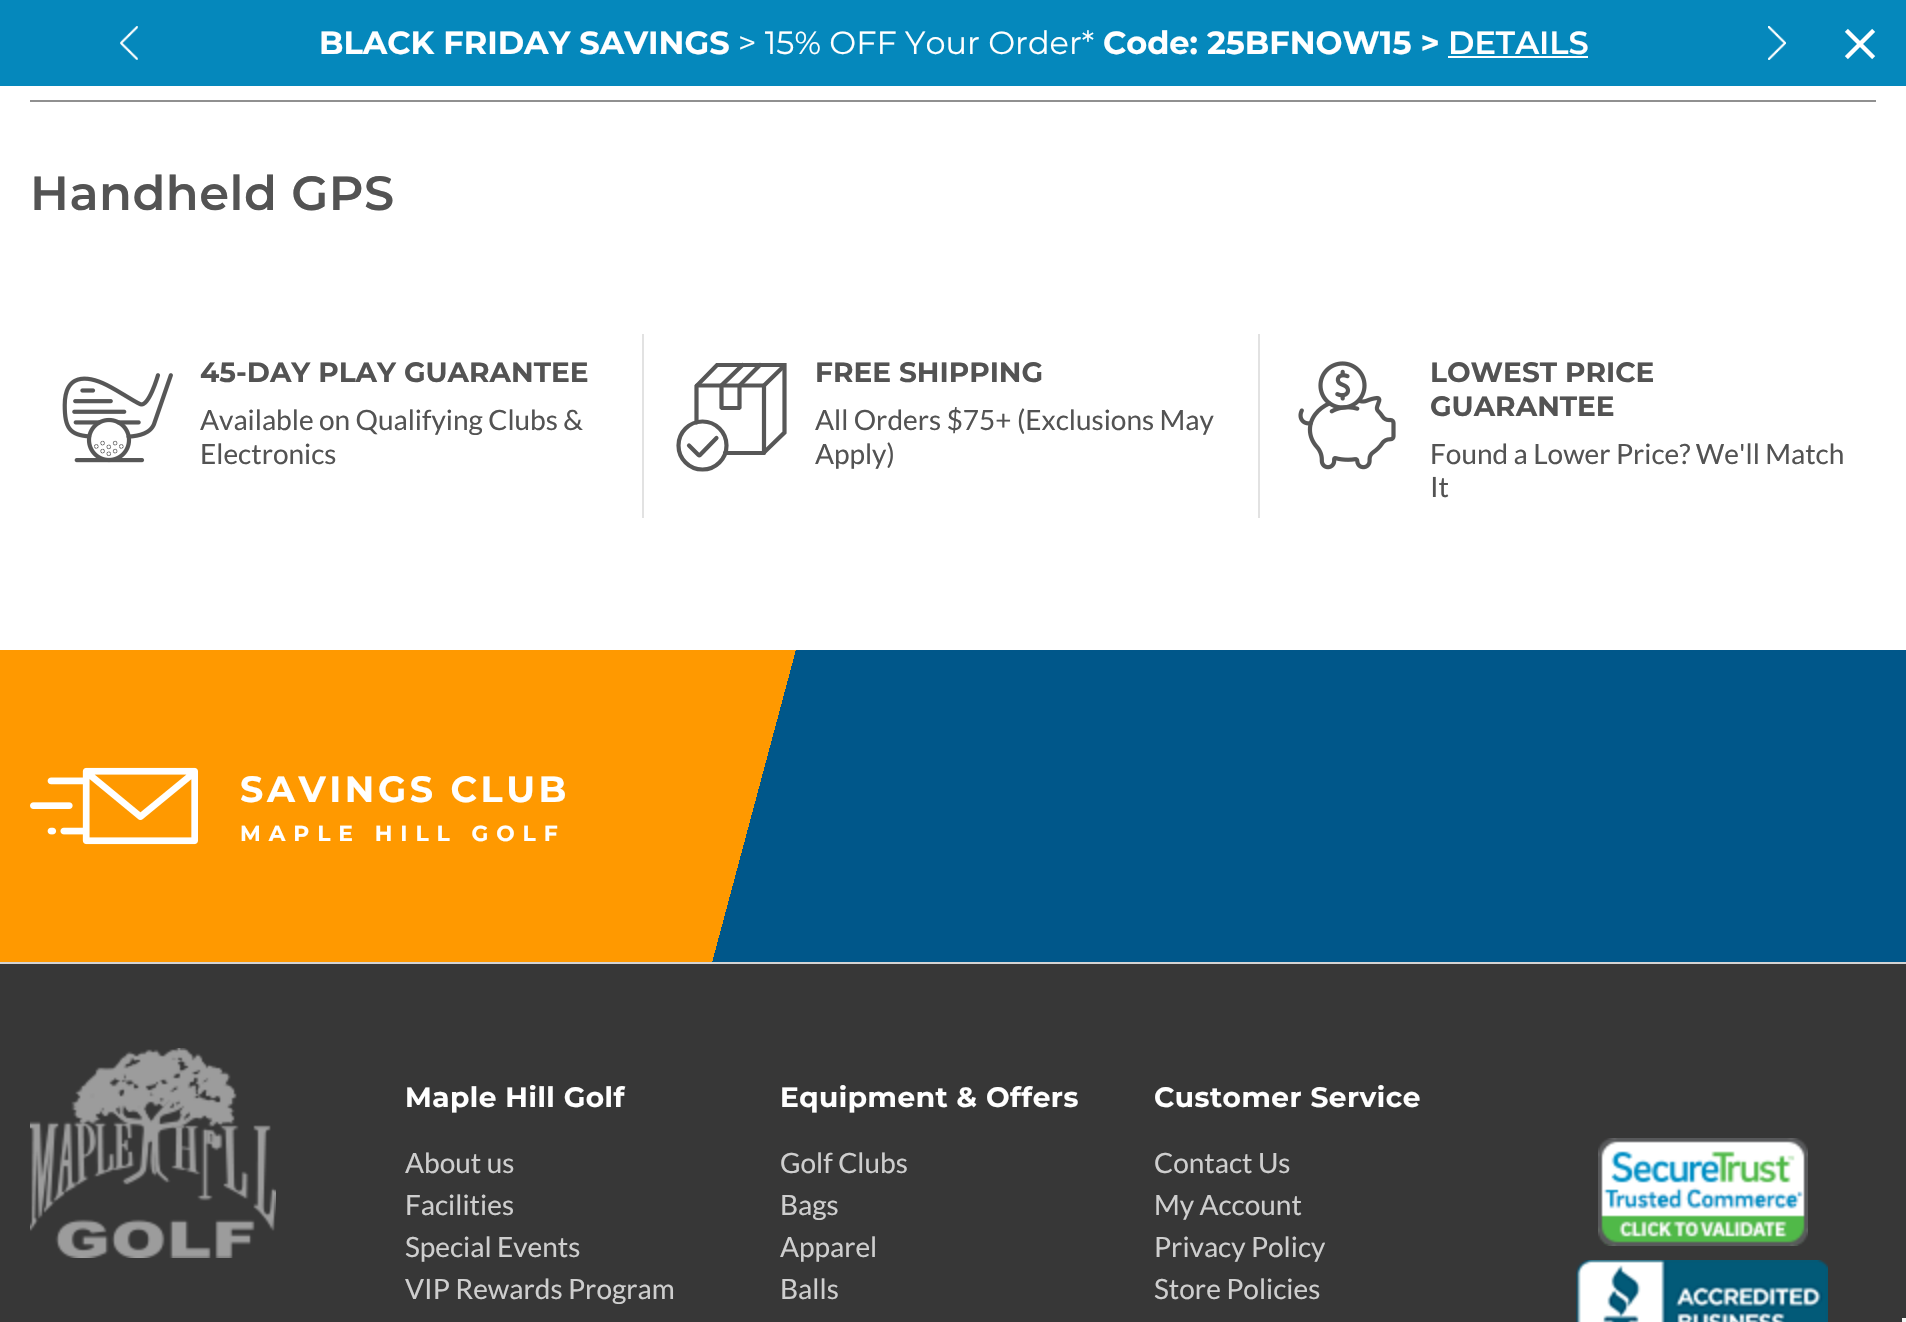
void draw(SkCanvas* canvas) {
    SkPaint paint;
    paint.setAntiAlias(true);
    auto face = [&](const char* family, int weight, float size, bool italic = false) {
        SkFontStyle style(weight, SkFontStyle::kNormal_Width,
            italic ? SkFontStyle::kItalic_Slant : SkFontStyle::kUpright_Slant);
        SkFont result(fontMgr->matchFamilyStyle(family, style), size);
        result.setSubpixel(true);
        return result;
    };
    auto write = [&](const char* s, float x, float y, const SkFont& font, SkColor color) {
        SkPaint ink(SkColor4f::FromColor(color));
        ink.setAntiAlias(true);
        canvas->drawString(s, x, y, font, ink);
    };
    auto writeSpaced = [&](const char* s, float x, float y, const SkFont& font, const SkPaint& ink, float letter, float word) {
        std::vector<SkGlyphID> glyphs(font.countText(s, strlen(s), SkTextEncoding::kUTF8));
        std::vector<float> xs(glyphs.size());
        font.textToGlyphs(s, strlen(s), SkTextEncoding::kUTF8, glyphs);
        font.getXPos(glyphs, xs, x);
        float extra = 0;
        for (size_t i = 0; i < glyphs.size(); i++) {
            xs[i] += extra;
            extra += letter + word * (glyphs[i] == font.unicharToGlyph(' '));
        }
        canvas->drawTextBlob(SkTextBlob::MakeFromPosHGlyphs(glyphs, xs, y, font), 0, 0, ink);
    };
    auto block = [&](float x, float y, float w, float h, SkColor color) {
        SkPaint ink(SkColor4f::FromColor(color));
        ink.setAntiAlias(true);
        canvas->drawRect(SkRect::MakeXYWH(x, y, w, h), ink);
    };
    auto paste = [&](const char* path, float x, float y, float w, float h) {
        auto image = SkImages::DeferredFromEncodedData(SkData::MakeFromFileName(path));
        canvas->drawImageRect(image, SkRect::MakeXYWH(x, y, w, h), SkSamplingOptions());
    };
    canvas->clear(SK_ColorWHITE);
    block(0, 0, 1906, 86, SkColorSetRGB(5, 136, 188));
    paste("pic1.png", 120, 26, 18, 34);
    auto kFont1 = face("Montserrat", 700, 32);
    write("BLACK FRIDAY SAVINGS", 319, 54, kFont1, SK_ColorWHITE);
    auto kFont2 = face("Montserrat", 400, 32);
    write("> 15% OFF Your Order*", 738, 54, kFont2, SK_ColorWHITE);
    write("Code: 25BFNOW15 >", 1103, 54, kFont1, SK_ColorWHITE);
    auto kFont3 = face("Montserrat", 600, 32);
    write("DETAILS", 1448, 54, kFont3, SK_ColorWHITE);
    block(1448, 56, 140, 2, SK_ColorWHITE);
    paste("pic2.png", 1768, 26, 18, 34);
    paste("pic3.png", 1844, 28, 32, 32);
    block(30, 100, 1846, 2, SkColorSetRGB(144, 144, 144));
    auto kFont4 = face("Montserrat", 600, 48);
    paint.setColor(SkColorSetRGB(83, 83, 83));
    writeSpaced("Handheld GPS", 30, 210, kFont4, paint, 0.5f, 0);
    block(642, 334, 2, 184, SkColorSetRGB(226, 226, 226));
    paste("pic4.png", 62, 373, 111, 90);
    auto kFont5 = face("Montserrat", 700, 28);
    write("45-DAY PLAY GUARANTEE", 200, 382, kFont5, SkColorSetRGB(83, 83, 83));
    auto kFont6 = face("Lato", 400, 28);
    write("Available on Qualifying Clubs &", 200, 430, kFont6, SkColorSetRGB(83, 83, 83));
    write("Electronics", 200, 464, kFont6, SkColorSetRGB(83, 83, 83));
    block(1258, 334, 2, 184, SkColorSetRGB(226, 226, 226));
    paint.setStyle(SkPaint::kStroke_Style);
    paint.setStrokeWidth(4.2f);
    paint.setColor(SkColorSetRGB(87, 87, 87));
    canvas->drawCircle(702.5f, 445.5f, 24, paint);
    paint.setStrokeCap(SkPaint::kRound_Cap);
    canvas->drawPath(SkPathBuilder().moveTo(716.5f, 438).lineTo(700, 455).cubicTo(699.5f, 455.5f, 699, 455.5f, 698.5f, 455).lineTo(689, 445.5f).detach(), paint);
    canvas->drawPath(SkPathBuilder().moveTo(697, 385.5f).lineTo(764, 385.5f).lineTo(764, 453).detach(), paint);
    canvas->drawPath(SkPathBuilder().moveTo(725, 453).lineTo(763.5f, 453).lineTo(784.5f, 432.5f).lineTo(784.5f, 365).lineTo(717, 365).lineTo(696.5f, 386).lineTo(696.5f, 422.5f).detach(), paint);
    canvas->drawPath(SkPathBuilder().moveTo(764, 385.5f).lineTo(784, 366).detach(), paint);
    canvas->drawPath(SkPathBuilder().moveTo(742.5f, 365).lineTo(721.5f, 385.5f).lineTo(721.5f, 407.5f).lineTo(722, 408).lineTo(739, 408).lineTo(739.5f, 407.5f).lineTo(739.5f, 385.5f).lineTo(760, 365).detach(), paint);
    write("FREE SHIPPING", 815, 382, kFont5, SkColorSetRGB(83, 83, 83));
    write("All Orders $75+ (Exclusions May", 815, 430, kFont6, SkColorSetRGB(83, 83, 83));
    write("Apply)", 815, 464, kFont6, SkColorSetRGB(83, 83, 83));
    paste("pic5.png", 1298, 361, 98, 109);
    write("LOWEST PRICE", 1430, 382, kFont5, SkColorSetRGB(83, 83, 83));
    write("GUARANTEE", 1430, 416, kFont5, SkColorSetRGB(83, 83, 83));
    write("Found a Lower Price? We'll Match", 1430, 464, kFont6, SkColorSetRGB(83, 83, 83));
    write("It", 1430, 497, kFont6, SkColorSetRGB(83, 83, 83));
    paint.setStyle(SkPaint::kFill_Style);
    {
        const SkColor colors[] = {SkColorSetRGB(255, 153, 0), SkColorSetRGB(0, 87, 138)};
        const float stops[] = {0.4f, 0.4f};
        const SkPoint ends[] = {{25, 557}, {1881, 1055}};
        paint.setShader(SkGradientShader::MakeLinear(ends, colors, stops, 2, SkTileMode::kClamp));
        paint.setAlpha(255);
    }
    canvas->drawRect(SkRect::MakeXYWH(0, 650, 1906, 312), paint);
    paste("pic6.png", 30, 767, 168, 78);
    auto kFont7 = face("Montserrat", 700, 36.5f);
    paint.setShader(nullptr);
    paint.setColor(SK_ColorWHITE);
    writeSpaced("SAVINGS CLUB", 240, 802, kFont7, paint, 3.6f, 0);
    auto kFont8 = face("Montserrat", 700, 21.8f);
    writeSpaced("MAPLE HILL GOLF", 240, 841, kFont8, paint, 7.9f, 0);
    block(0, 964, 1906, 358, SkColorSetRGB(55, 55, 55));
    block(0, 962, 1906, 2, SkColorSetRGB(211, 211, 211));
    paste("pic7.png", 30, 1048, 246, 210);
    writeSpaced("Maple Hill Golf", 405, 1107, kFont5, paint, 0.5f, 0);
    write("About us", 405, 1173, kFont6, SkColorSetRGB(206, 206, 206));
    write("Facilities", 405, 1215, kFont6, SkColorSetRGB(206, 206, 206));
    write("Special Events", 405, 1257, kFont6, SkColorSetRGB(206, 206, 206));
    write("VIP Rewards Program", 405, 1299, kFont6, SkColorSetRGB(206, 206, 206));
    writeSpaced("Equipment & Offers", 780, 1107, kFont5, paint, 0.5f, 0);
    write("Golf Clubs", 780, 1173, kFont6, SkColorSetRGB(206, 206, 206));
    write("Bags", 780, 1215, kFont6, SkColorSetRGB(206, 206, 206));
    write("Apparel", 780, 1257, kFont6, SkColorSetRGB(206, 206, 206));
    write("Balls", 780, 1299, kFont6, SkColorSetRGB(206, 206, 206));
    writeSpaced("Customer Service", 1154, 1107, kFont5, paint, 0.5f, 0);
    write("Contact Us", 1154, 1173, kFont6, SkColorSetRGB(206, 206, 206));
    write("My Account", 1154, 1215, kFont6, SkColorSetRGB(206, 206, 206));
    write("Privacy Policy", 1154, 1257, kFont6, SkColorSetRGB(206, 206, 206));
    write("Store Policies", 1154, 1299, kFont6, SkColorSetRGB(206, 206, 206));
    paste("pic8.png", 1598, 1138, 210, 108);
    paste("pic9.png", 1576, 1260, 252, 62);
    block(1902, 1318, 4, 4, SkColorSetRGB(245, 245, 245));
}
